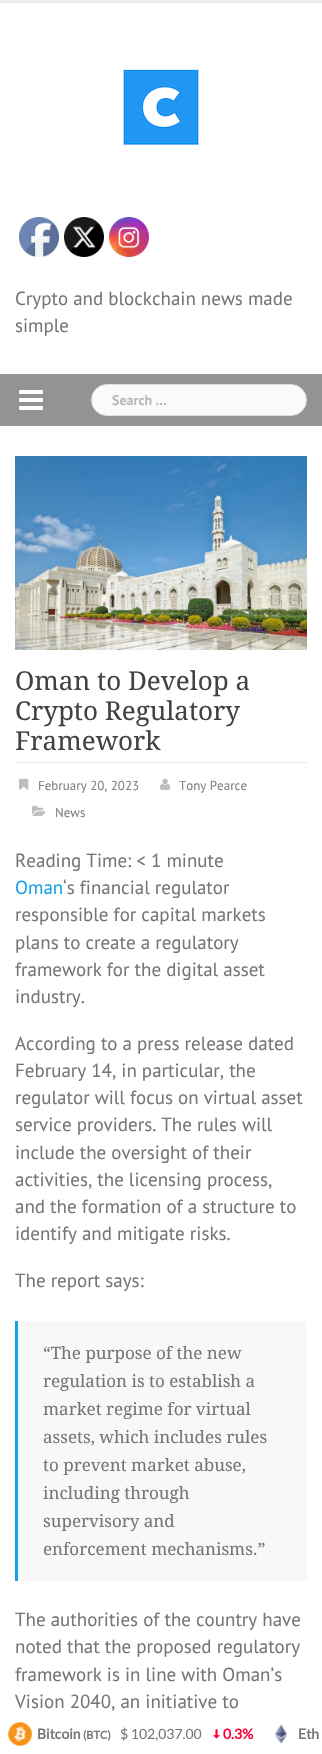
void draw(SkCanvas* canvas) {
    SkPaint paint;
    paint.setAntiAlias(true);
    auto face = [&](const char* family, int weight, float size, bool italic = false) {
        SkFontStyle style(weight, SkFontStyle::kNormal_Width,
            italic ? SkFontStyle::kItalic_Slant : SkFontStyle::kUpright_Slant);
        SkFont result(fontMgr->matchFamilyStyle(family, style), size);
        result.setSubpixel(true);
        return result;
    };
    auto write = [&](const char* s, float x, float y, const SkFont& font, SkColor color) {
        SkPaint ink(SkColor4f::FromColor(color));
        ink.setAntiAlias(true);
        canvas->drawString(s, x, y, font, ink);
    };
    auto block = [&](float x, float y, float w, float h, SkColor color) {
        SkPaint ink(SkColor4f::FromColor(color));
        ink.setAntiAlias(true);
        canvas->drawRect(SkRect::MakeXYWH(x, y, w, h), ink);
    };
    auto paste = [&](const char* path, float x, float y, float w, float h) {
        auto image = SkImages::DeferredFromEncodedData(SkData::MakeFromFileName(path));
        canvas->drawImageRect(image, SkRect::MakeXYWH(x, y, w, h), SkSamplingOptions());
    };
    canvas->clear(SkColorSetRGB(235, 235, 235));
    block(0, 3, 322, 371, SK_ColorWHITE);
    paste("pic1.png", 123, 69, 76, 76);
    paste("pic2.png", 19, 217, 40, 40);
    paste("pic3.png", 64, 217, 40, 40);
    paste("pic4.png", 109, 217, 40, 40);
    auto kFont1 = face("PT Sans", 400, 19);
    write("Crypto and blockchain news made", 15, 305, kFont1, SkColorSetRGB(118, 118, 118));
    write("simple", 15, 332, kFont1, SkColorSetRGB(118, 118, 118));
    block(0, 374, 322, 52, SkColorSetRGB(147, 147, 147));
    paste("pic5.png", 19, 390, 24, 20);
    paint.setColor(SkColorSetRGB(250, 250, 250));
    canvas->drawRoundRect(SkRect::MakeXYWH(91.5f, 384.5f, 215, 31), 15.5f, 15.5f, paint);
    paint.setStyle(SkPaint::kStroke_Style);
    paint.setStrokeWidth(1);
    paint.setColor(SkColorSetRGB(223, 223, 223));
    canvas->drawRoundRect(SkRect::MakeXYWH(91.5f, 384.5f, 215, 31), 15.5f, 15.5f, paint);
    auto kFont2 = face("PT Sans", 700, 14);
    write("Search …", 112, 405, kFont2, SkColorSetRGB(185, 185, 185));
    block(0, 426, 322, 1328, SK_ColorWHITE);
    paste("pic6.png", 15, 456, 292, 194);
    block(15, 762, 292, 1, SkColorSetRGB(234, 234, 234));
    auto kFont3 = face("Droid Serif", 400, 26);
    write("Oman to Develop a", 15, 690, kFont3, SkColorSetRGB(66, 67, 71));
    write("Crypto Regulatory", 15, 720, kFont3, SkColorSetRGB(66, 67, 71));
    write("Framework", 15, 750, kFont3, SkColorSetRGB(66, 67, 71));
    paste("pic7.png", 19, 778, 10, 12);
    auto kFont4 = face("PT Sans", 400, 13);
    write("February 20, 2023", 38, 790, kFont4, SkColorSetRGB(131, 130, 130));
    paste("pic8.png", 160, 778, 11, 12);
    write("Tony Pearce", 179, 790, kFont4, SkColorSetRGB(131, 130, 130));
    paste("pic9.png", 32, 805, 14, 11);
    write("News", 55, 817, kFont4, SkColorSetRGB(131, 130, 130));
    write("Reading Time: < 1 minute", 15, 867, kFont1, SkColorSetRGB(118, 118, 118));
    write("Oman", 15, 894, kFont1, SkColorSetRGB(22, 161, 231));
    write("‘s financial regulator", 63, 894, kFont1, SkColorSetRGB(118, 118, 118));
    write("responsible for capital markets", 15, 921, kFont1, SkColorSetRGB(118, 118, 118));
    write("plans to create a regulatory", 15, 949, kFont1, SkColorSetRGB(118, 118, 118));
    write("framework for the digital asset", 15, 976, kFont1, SkColorSetRGB(118, 118, 118));
    write("industry.", 15, 1003, kFont1, SkColorSetRGB(118, 118, 118));
    write("According to a press release dated", 15, 1050, kFont1, SkColorSetRGB(118, 118, 118));
    write("February 14, in particular, the", 15, 1077, kFont1, SkColorSetRGB(118, 118, 118));
    write("regulator will focus on virtual asset", 15, 1104, kFont1, SkColorSetRGB(118, 118, 118));
    write("service providers. The rules will", 15, 1131, kFont1, SkColorSetRGB(118, 118, 118));
    write("include the oversight of their", 15, 1159, kFont1, SkColorSetRGB(118, 118, 118));
    write("activities, the licensing process,", 15, 1186, kFont1, SkColorSetRGB(118, 118, 118));
    write("and the formation of a structure to", 15, 1213, kFont1, SkColorSetRGB(118, 118, 118));
    write("identify and mitigate risks.", 15, 1240, kFont1, SkColorSetRGB(118, 118, 118));
    write("The report says:", 15, 1287, kFont1, SkColorSetRGB(118, 118, 118));
    block(18, 1321, 289, 260, SkColorSetRGB(248, 248, 248));
    block(15, 1321, 3, 260, SkColorSetRGB(22, 161, 231));
    auto kFont5 = face("Droid Serif", 400, 17);
    write("“The purpose of the new", 43, 1359, kFont5, SkColorSetRGB(118, 118, 118));
    write("regulation is to establish a", 43, 1387, kFont5, SkColorSetRGB(118, 118, 118));
    write("market regime for virtual", 43, 1415, kFont5, SkColorSetRGB(118, 118, 118));
    write("assets, which includes rules", 43, 1443, kFont5, SkColorSetRGB(118, 118, 118));
    write("to prevent market abuse,", 43, 1471, kFont5, SkColorSetRGB(118, 118, 118));
    write("including through", 43, 1499, kFont5, SkColorSetRGB(118, 118, 118));
    write("supervisory and", 43, 1527, kFont5, SkColorSetRGB(118, 118, 118));
    write("enforcement mechanisms.”", 43, 1555, kFont5, SkColorSetRGB(118, 118, 118));
    write("The authorities of the country have", 15, 1626, kFont1, SkColorSetRGB(118, 118, 118));
    write("noted that the proposed regulatory", 15, 1653, kFont1, SkColorSetRGB(118, 118, 118));
    write("framework is in line with Oman’s", 15, 1681, kFont1, SkColorSetRGB(118, 118, 118));
    write("Vision 2040, an initiative to", 15, 1708, kFont1, SkColorSetRGB(118, 118, 118));
    paste("pic10.png", 8, 1722, 24, 24);
    auto kFont6 = face("Lato", 700, 14);
    write("Bitcoin", 37, 1739, kFont6, SkColorSetRGB(118, 118, 118));
    auto kFont7 = face("Lato", 700, 11);
    write("(BTC)", 83, 1739, kFont7, SkColorSetRGB(118, 118, 118));
    auto kFont8 = face("Lato", 400, 14);
    write("$ 102,037.00", 120, 1739, kFont8, SkColorSetRGB(118, 118, 118));
    paste("pic11.png", 213, 1729, 7, 10);
    write("0.3%", 223, 1739, kFont6, SkColorSetRGB(255, 0, 51));
    paste("pic12.png", 274, 1724, 14, 20);
    write("Eth", 298, 1739, kFont6, SkColorSetRGB(118, 118, 118));
}
